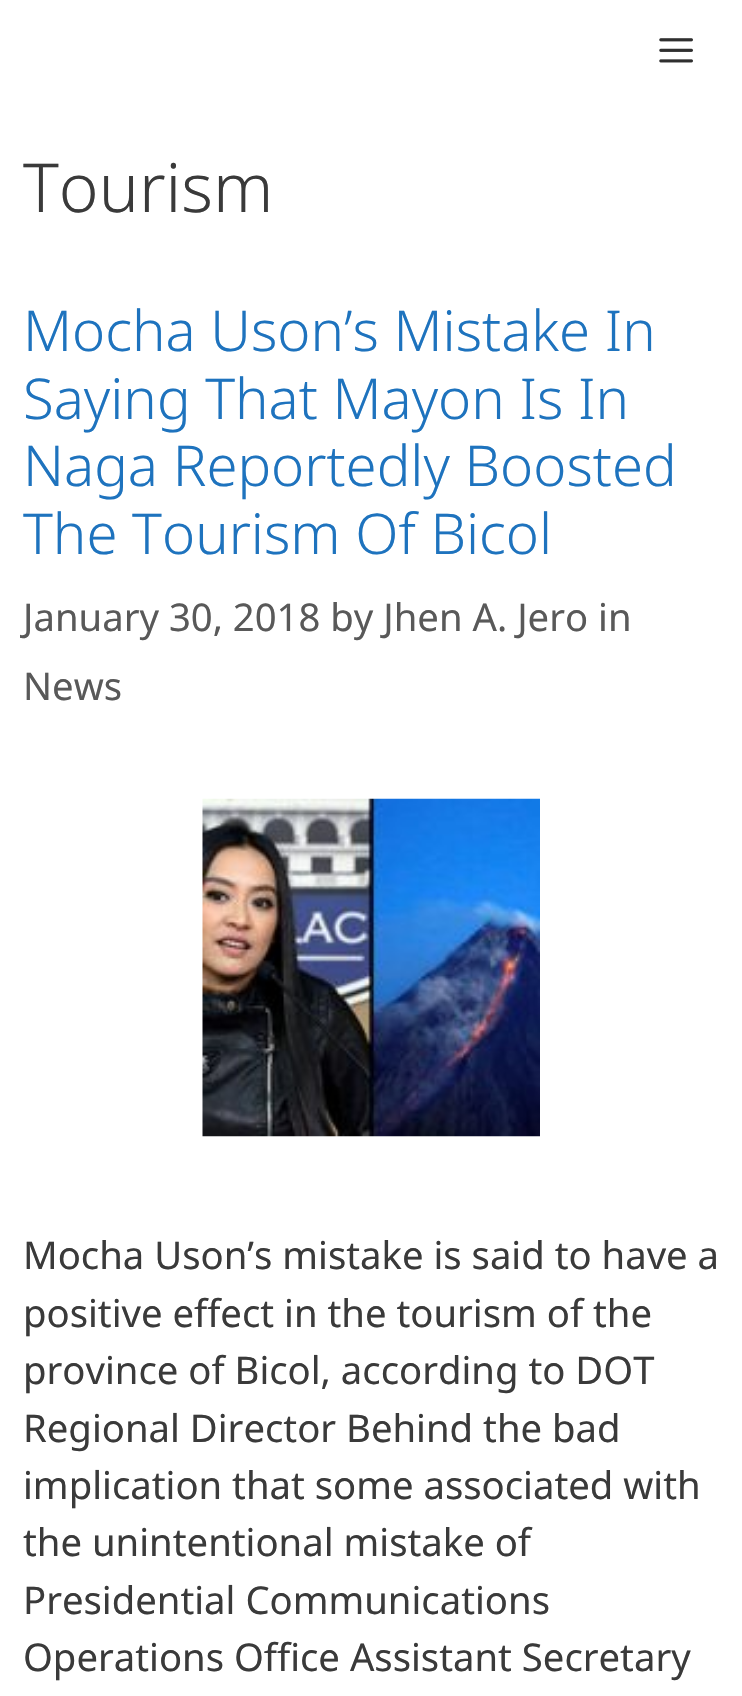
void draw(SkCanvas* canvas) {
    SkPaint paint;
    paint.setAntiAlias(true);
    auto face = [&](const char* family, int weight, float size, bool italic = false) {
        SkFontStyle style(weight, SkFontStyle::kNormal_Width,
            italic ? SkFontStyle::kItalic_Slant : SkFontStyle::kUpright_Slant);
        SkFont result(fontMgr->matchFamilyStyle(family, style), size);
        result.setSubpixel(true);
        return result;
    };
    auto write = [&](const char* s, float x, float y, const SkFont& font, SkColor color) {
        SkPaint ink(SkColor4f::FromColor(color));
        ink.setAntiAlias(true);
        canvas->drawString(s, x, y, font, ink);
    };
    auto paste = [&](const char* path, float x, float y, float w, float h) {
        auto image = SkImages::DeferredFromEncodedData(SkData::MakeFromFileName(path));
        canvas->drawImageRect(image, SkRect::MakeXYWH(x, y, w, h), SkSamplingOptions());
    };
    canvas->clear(SK_ColorWHITE);
    paste("pic1.png", 659, 38, 34, 25);
    auto kFont1 = face("Noto Sans", 300, 67.5f);
    write("Tourism", 23, 212, kFont1, SkColorSetRGB(58, 58, 58));
    auto kFont2 = face("Noto Sans", 300, 56.25f);
    write("Mocha Uson’s Mistake In", 23, 351, kFont2, SkColorSetRGB(30, 115, 190));
    write("Saying That Mayon Is In", 23, 419, kFont2, SkColorSetRGB(30, 115, 190));
    write("Naga Reportedly Boosted", 23, 486, kFont2, SkColorSetRGB(30, 115, 190));
    write("The Tourism Of Bicol", 23, 554, kFont2, SkColorSetRGB(30, 115, 190));
    auto kFont3 = face("Noto Sans", 400, 38.25f);
    write("January 30, 2018 by Jhen A. Jero in", 23, 631, kFont3, SkColorSetRGB(89, 89, 89));
    write("News", 23, 700, kFont3, SkColorSetRGB(89, 89, 89));
    paste("pic2.png", 202, 798, 338, 339);
    write("Mocha Uson’s mistake is said to have a", 23, 1269, kFont3, SkColorSetRGB(58, 58, 58));
    write("positive effect in the tourism of the", 23, 1327, kFont3, SkColorSetRGB(58, 58, 58));
    write("province of Bicol, according to DOT", 23, 1384, kFont3, SkColorSetRGB(58, 58, 58));
    write("Regional Director Behind the bad", 23, 1442, kFont3, SkColorSetRGB(58, 58, 58));
    write("implication that some associated with", 23, 1499, kFont3, SkColorSetRGB(58, 58, 58));
    write("the unintentional mistake of", 23, 1556, kFont3, SkColorSetRGB(58, 58, 58));
    write("Presidential Communications", 23, 1614, kFont3, SkColorSetRGB(58, 58, 58));
    write("Operations Office Assistant Secretary", 23, 1671, kFont3, SkColorSetRGB(58, 58, 58));
}
